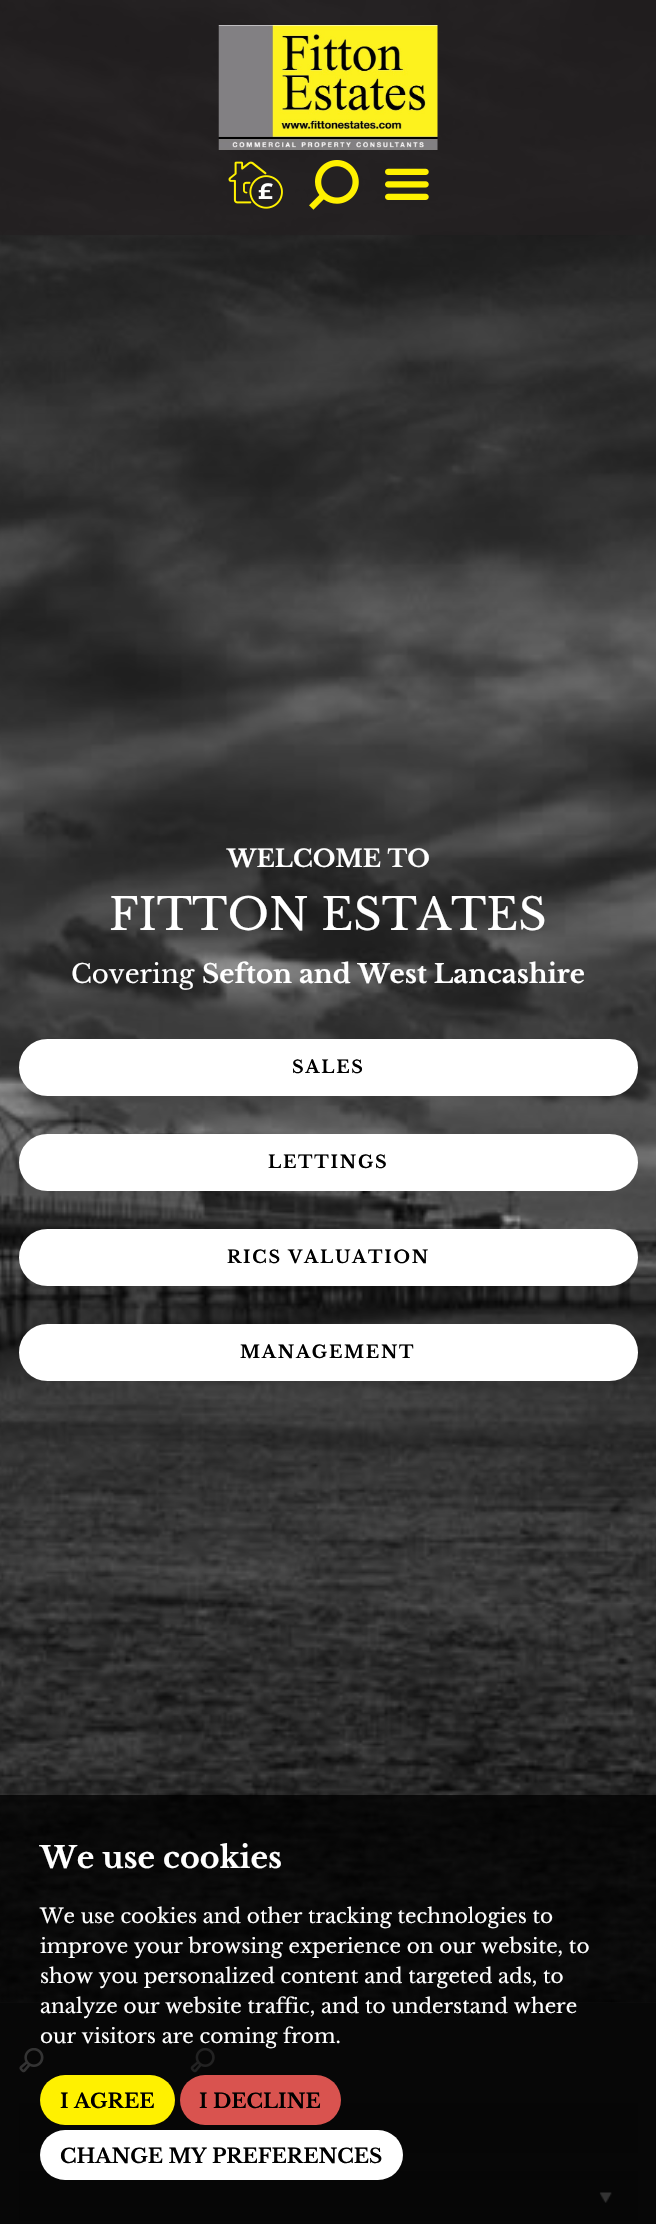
void draw(SkCanvas* canvas) {
    SkPaint paint;
    paint.setAntiAlias(true);
    auto face = [&](const char* family, int weight, float size, bool italic = false) {
        SkFontStyle style(weight, SkFontStyle::kNormal_Width,
            italic ? SkFontStyle::kItalic_Slant : SkFontStyle::kUpright_Slant);
        SkFont result(fontMgr->matchFamilyStyle(family, style), size);
        result.setSubpixel(true);
        return result;
    };
    auto write = [&](const char* s, float x, float y, const SkFont& font, SkColor color) {
        SkPaint ink(SkColor4f::FromColor(color));
        ink.setAntiAlias(true);
        canvas->drawString(s, x, y, font, ink);
    };
    auto writeSpaced = [&](const char* s, float x, float y, const SkFont& font, const SkPaint& ink, float letter, float word) {
        std::vector<SkGlyphID> glyphs(font.countText(s, strlen(s), SkTextEncoding::kUTF8));
        std::vector<float> xs(glyphs.size());
        font.textToGlyphs(s, strlen(s), SkTextEncoding::kUTF8, glyphs);
        font.getXPos(glyphs, xs, x);
        float extra = 0;
        for (size_t i = 0; i < glyphs.size(); i++) {
            xs[i] += extra;
            extra += letter + word * (glyphs[i] == font.unicharToGlyph(' '));
        }
        canvas->drawTextBlob(SkTextBlob::MakeFromPosHGlyphs(glyphs, xs, y, font), 0, 0, ink);
    };
    auto block = [&](float x, float y, float w, float h, SkColor color) {
        SkPaint ink(SkColor4f::FromColor(color));
        ink.setAntiAlias(true);
        canvas->drawRect(SkRect::MakeXYWH(x, y, w, h), ink);
    };
    auto card = [&](float x, float y, float w, float h, float radius, SkColor color) {
        SkPaint ink(SkColor4f::FromColor(color));
        ink.setAntiAlias(true);
        canvas->drawRoundRect(SkRect::MakeXYWH(x, y, w, h), radius, radius, ink);
    };
    auto paste = [&](const char* path, float x, float y, float w, float h) {
        auto image = SkImages::DeferredFromEncodedData(SkData::MakeFromFileName(path));
        canvas->drawImageRect(image, SkRect::MakeXYWH(x, y, w, h), SkSamplingOptions());
    };
    canvas->clear(SkColorSetRGB(35, 31, 32));
    block(0, 2002, 656, 1, SkColorSetRGB(77, 77, 77));
    paste("pic5.png", 0, 0, 656, 2003);
    {
        const SkColor colors[] = {SkColorSetARGB(51, 0, 0, 0), SkColorSetARGB(204, 0, 0, 0)};
        const float stops[] = {0.2f, 1};
        const SkPoint ends[] = {{328, 2003}, {328, 0}};
        paint.setShader(SkGradientShader::MakeLinear(ends, colors, stops, 2, SkTileMode::kClamp));
        paint.setAlpha(255);
    }
    canvas->drawRect(SkRect::MakeXYWH(0, 0, 656, 2003), paint);
    block(0, 0, 656, 235, SkColorSetARGB(204, 35, 31, 32));
    paste("pic1.png", 218, 25, 220, 125);
    paste("pic2.png", 228, 161, 55, 48);
    paste("pic3.png", 309, 160, 50, 50);
    paste("pic4.png", 385, 168, 44, 32);
    auto kFont1 = face("Libre Baskerville", 700, 24);
    write("WELCOME TO", 227, 867, kFont1, SK_ColorWHITE);
    auto kFont2 = face("Libre Baskerville", 400, 44);
    write("FITTON ESTATES", 109, 930, kFont2, SK_ColorWHITE);
    auto kFont3 = face("Libre Baskerville", 400, 26);
    write("Covering", 71, 983, kFont3, SK_ColorWHITE);
    auto kFont4 = face("Libre Baskerville", 700, 26);
    write("Sefton and West Lancashire", 202, 983, kFont4, SK_ColorWHITE);
    paint.setShader(nullptr);
    paint.setColor(SK_ColorWHITE);
    canvas->drawRoundRect(SkRect::MakeXYWH(20.5f, 1040.5f, 616, 54), 27, 27, paint);
    paint.setStyle(SkPaint::kStroke_Style);
    paint.setStrokeWidth(3);
    canvas->drawRoundRect(SkRect::MakeXYWH(20.5f, 1040.5f, 616, 54), 27, 27, paint);
    auto kFont5 = face("Libre Baskerville", 700, 17.5f);
    paint.setStyle(SkPaint::kFill_Style);
    paint.setColor(SK_ColorBLACK);
    writeSpaced("SALES", 292, 1073, kFont5, paint, 1.75f, 0);
    paint.setColor(SK_ColorWHITE);
    canvas->drawRoundRect(SkRect::MakeXYWH(20.5f, 1135.5f, 616, 54), 27, 27, paint);
    paint.setStyle(SkPaint::kStroke_Style);
    canvas->drawRoundRect(SkRect::MakeXYWH(20.5f, 1135.5f, 616, 54), 27, 27, paint);
    paint.setStyle(SkPaint::kFill_Style);
    paint.setColor(SK_ColorBLACK);
    writeSpaced("LETTINGS", 268, 1168, kFont5, paint, 1.75f, 0);
    paint.setColor(SK_ColorWHITE);
    canvas->drawRoundRect(SkRect::MakeXYWH(20.5f, 1230.5f, 616, 54), 27, 27, paint);
    paint.setStyle(SkPaint::kStroke_Style);
    canvas->drawRoundRect(SkRect::MakeXYWH(20.5f, 1230.5f, 616, 54), 27, 27, paint);
    paint.setStyle(SkPaint::kFill_Style);
    paint.setColor(SK_ColorBLACK);
    writeSpaced("RICS VALUATION", 227, 1263, kFont5, paint, 1.75f, 0);
    paint.setColor(SK_ColorWHITE);
    canvas->drawRoundRect(SkRect::MakeXYWH(20.5f, 1325.5f, 616, 54), 27, 27, paint);
    paint.setStyle(SkPaint::kStroke_Style);
    canvas->drawRoundRect(SkRect::MakeXYWH(20.5f, 1325.5f, 616, 54), 27, 27, paint);
    paint.setStyle(SkPaint::kFill_Style);
    paint.setColor(SK_ColorBLACK);
    writeSpaced("MANAGEMENT", 240, 1358, kFont5, paint, 1.75f, 0);
    paste("pic6.png", 19, 2048, 25, 25);
    paste("pic7.png", 190, 2048, 25, 25);
    block(19, 2103, 619, 50, SkColorSetRGB(26, 26, 26));
    block(19, 2171, 619, 50, SkColorSetRGB(26, 26, 26));
    paste("pic8.png", 599, 2192, 13, 11);
    block(0, 1795, 656, 429, SkColorSetARGB(204, 0, 0, 0));
    auto kFont6 = face("Libre Baskerville", 700, 30);
    write("We use cookies", 40, 1868, kFont6, SK_ColorWHITE);
    auto kFont7 = face("Libre Baskerville", 400, 20);
    write("We use cookies and other tracking technologies to", 40, 1923, kFont7, SK_ColorWHITE);
    write("improve your browsing experience on our website, to", 40, 1953, kFont7, SK_ColorWHITE);
    write("show you personalized content and targeted ads, to", 40, 1983, kFont7, SK_ColorWHITE);
    write("analyze our website traffic, and to understand where", 40, 2013, kFont7, SK_ColorWHITE);
    write("our visitors are coming from.", 40, 2043, kFont7, SK_ColorWHITE);
    card(40, 2075, 135, 50, 25, SkColorSetRGB(255, 241, 0));
    auto kFont8 = face("Libre Baskerville", 700, 20);
    write("I AGREE", 60, 2108, kFont8, SK_ColorBLACK);
    card(180, 2075, 161, 50, 25, SkColorSetRGB(217, 83, 79));
    write("I DECLINE", 199, 2108, kFont8, SK_ColorBLACK);
    card(40, 2130, 363, 50, 25, SK_ColorWHITE);
    write("CHANGE MY PREFERENCES", 60, 2163, kFont8, SK_ColorBLACK);
}
